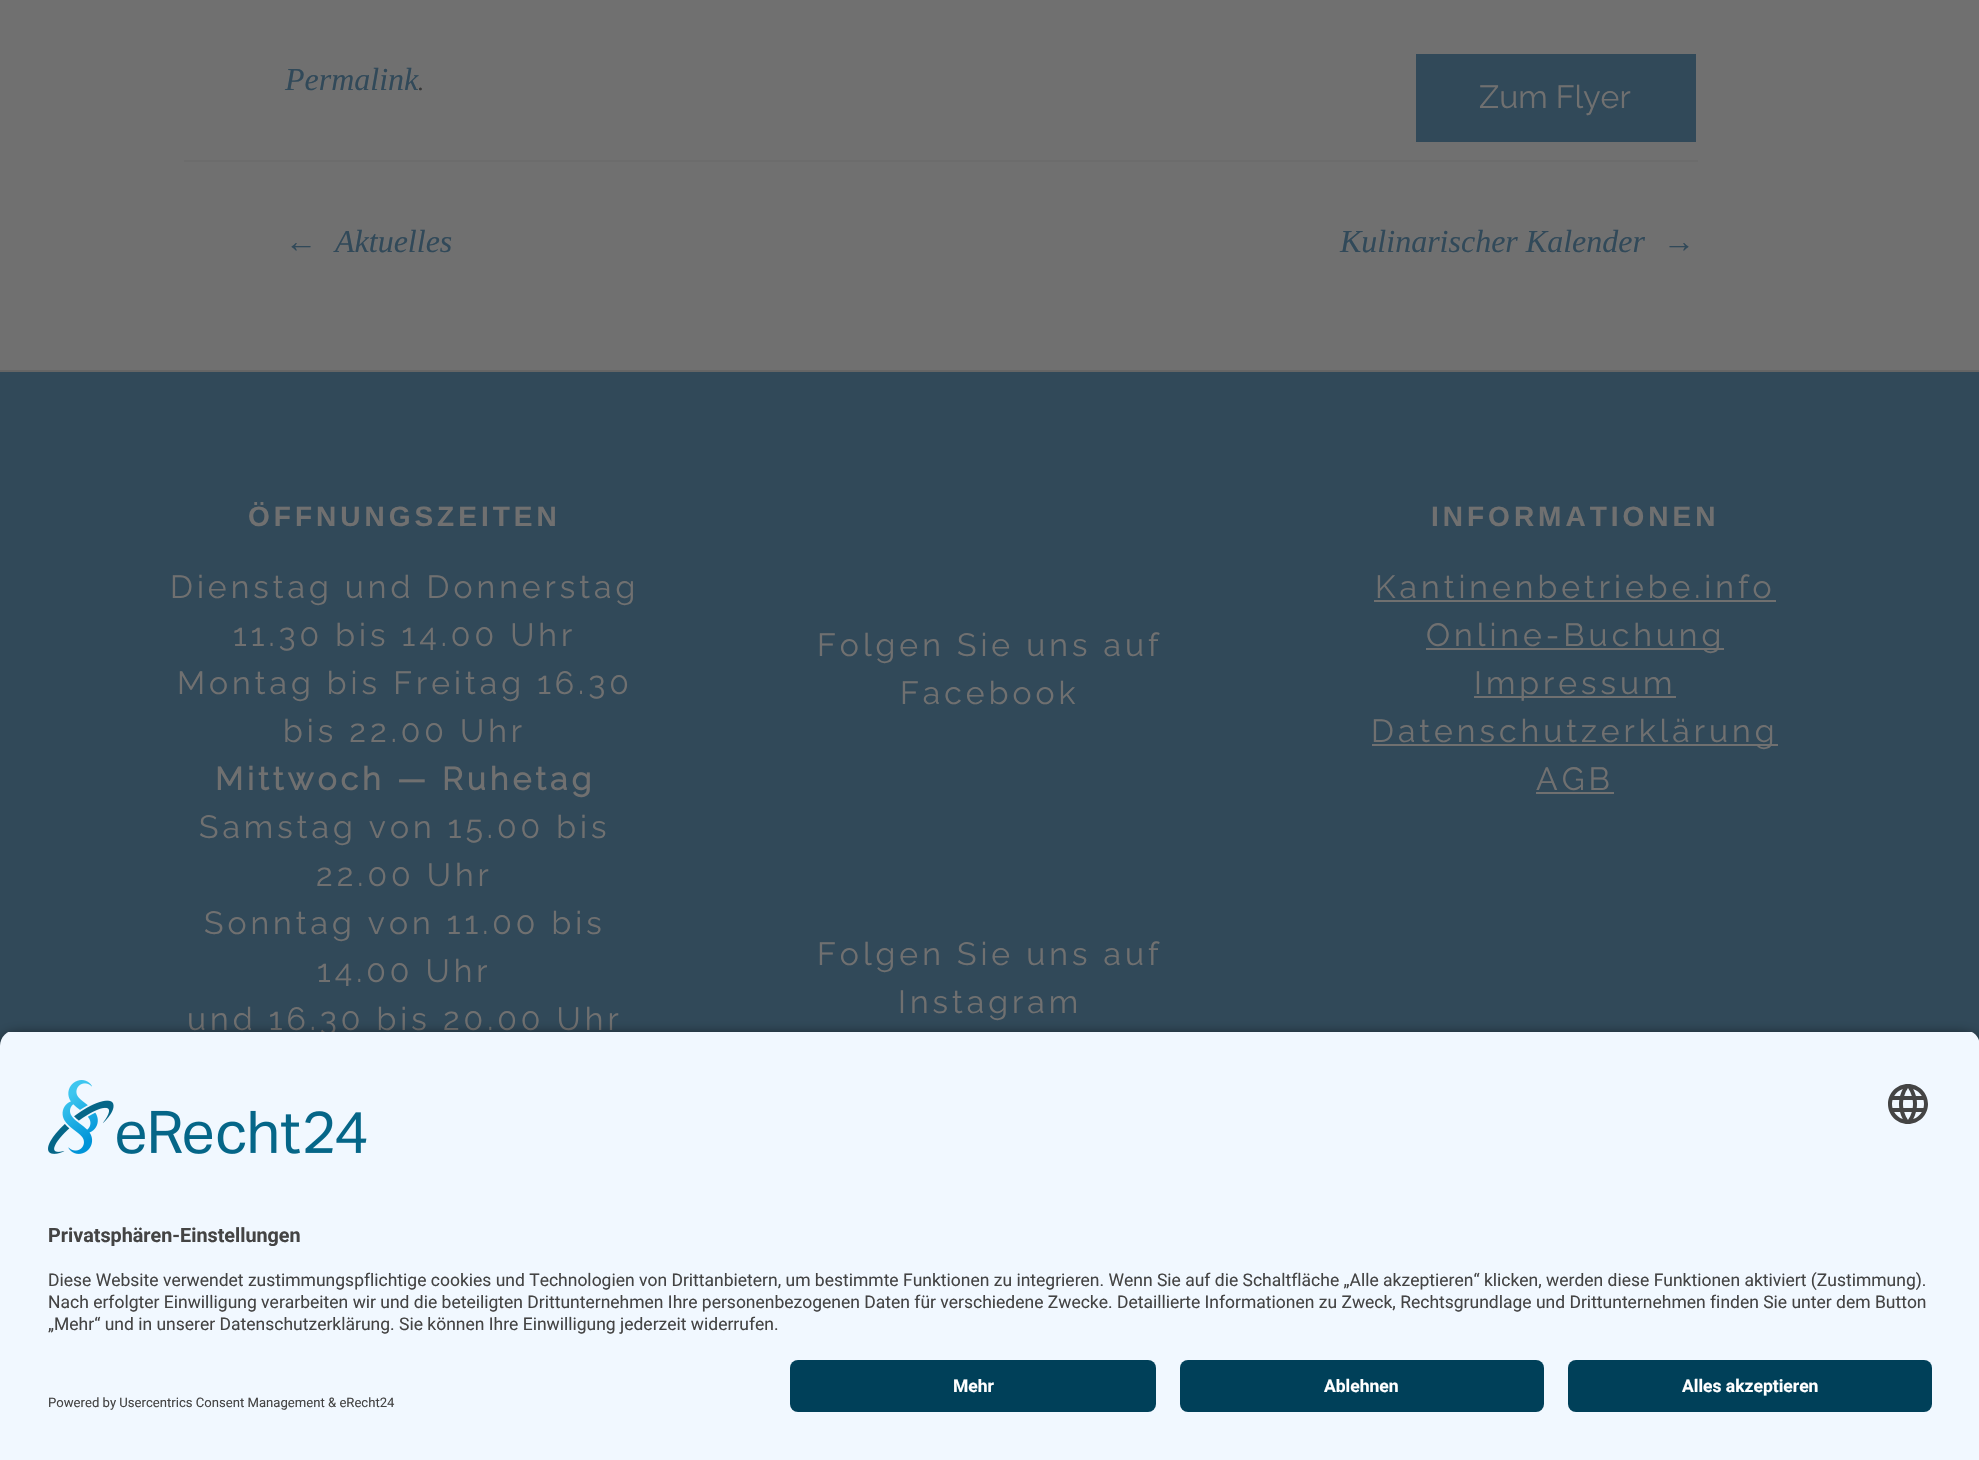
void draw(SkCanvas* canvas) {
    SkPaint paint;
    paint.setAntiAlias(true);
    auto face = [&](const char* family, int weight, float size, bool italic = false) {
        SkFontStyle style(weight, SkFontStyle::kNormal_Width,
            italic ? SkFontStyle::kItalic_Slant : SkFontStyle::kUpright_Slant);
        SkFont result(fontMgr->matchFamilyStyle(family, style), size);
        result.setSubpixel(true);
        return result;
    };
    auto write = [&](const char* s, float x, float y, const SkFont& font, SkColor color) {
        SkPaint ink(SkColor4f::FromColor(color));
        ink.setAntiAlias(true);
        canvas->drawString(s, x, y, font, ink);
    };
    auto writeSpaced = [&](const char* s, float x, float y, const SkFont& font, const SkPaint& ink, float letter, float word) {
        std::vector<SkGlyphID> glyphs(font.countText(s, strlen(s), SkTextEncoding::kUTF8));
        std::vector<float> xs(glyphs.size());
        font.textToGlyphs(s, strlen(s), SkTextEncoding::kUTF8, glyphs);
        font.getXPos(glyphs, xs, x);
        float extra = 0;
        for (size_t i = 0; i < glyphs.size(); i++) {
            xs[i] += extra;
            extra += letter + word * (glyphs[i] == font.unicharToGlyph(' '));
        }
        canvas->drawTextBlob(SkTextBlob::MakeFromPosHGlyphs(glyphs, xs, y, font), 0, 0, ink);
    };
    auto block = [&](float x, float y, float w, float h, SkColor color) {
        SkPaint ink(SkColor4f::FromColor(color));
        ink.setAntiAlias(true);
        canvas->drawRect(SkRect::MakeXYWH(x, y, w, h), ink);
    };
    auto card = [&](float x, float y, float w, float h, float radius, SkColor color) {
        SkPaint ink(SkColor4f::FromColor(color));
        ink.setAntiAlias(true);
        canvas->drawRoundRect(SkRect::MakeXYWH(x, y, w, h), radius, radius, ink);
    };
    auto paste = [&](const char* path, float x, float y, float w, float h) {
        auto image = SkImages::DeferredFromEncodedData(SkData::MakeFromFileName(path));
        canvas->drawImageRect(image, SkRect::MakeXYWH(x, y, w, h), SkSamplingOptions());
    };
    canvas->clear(SkColorSetRGB(112, 112, 112));
    auto kFont1 = face("Liberation Serif", 400, 32, true);
    write("Permalink", 285, 90, kFont1, SkColorSetRGB(49, 73, 89));
    auto kFont2 = face("Liberation Serif", 400, 24, true);
    write(".", 418, 90, kFont2, SkColorSetRGB(55, 55, 55));
    block(1416, 54, 280, 88, SkColorSetRGB(49, 73, 89));
    auto kFont3 = face("Raleway", 100, 32);
    write("Zum Flyer", 1479, 108, kFont3, SkColorSetRGB(112, 112, 112));
    block(184, 160, 1514, 2, SkColorSetRGB(108, 108, 108));
    write("←", 285, 252, kFont1, SkColorSetRGB(49, 73, 89));
    write("Aktuelles", 335, 252, kFont1, SkColorSetRGB(49, 73, 89));
    write("Kulinarischer Kalender", 1340, 252, kFont1, SkColorSetRGB(49, 73, 89));
    write("→", 1663, 252, kFont1, SkColorSetRGB(49, 73, 89));
    block(0, 372, 1979, 674, SkColorSetRGB(49, 73, 89));
    block(0, 370, 1979, 2, SkColorSetRGB(101, 101, 101));
    auto kFont4 = face("Liberation Sans", 700, 28);
    paint.setColor(SkColorSetRGB(112, 112, 112));
    writeSpaced("ÖFFNUNGSZEITEN", 248, 526, kFont4, paint, 4, 0);
    writeSpaced("Dienstag und Donnerstag", 170, 598, kFont3, paint, 4, 0);
    writeSpaced("11.30 bis 14.00 Uhr", 233, 646, kFont3, paint, 4, 0);
    writeSpaced("Montag bis Freitag 16.30", 177, 694, kFont3, paint, 4, 0);
    writeSpaced("bis 22.00 Uhr", 283, 742, kFont3, paint, 4, 0);
    auto kFont5 = face("Raleway", 700, 32);
    writeSpaced("Mittwoch — Ruhetag", 215, 790, kFont5, paint, 4, 0);
    writeSpaced("Samstag von 15.00 bis", 199, 838, kFont3, paint, 4, 0);
    writeSpaced("22.00 Uhr", 316, 886, kFont3, paint, 4, 0);
    writeSpaced("Sonntag von 11.00 bis", 204, 934, kFont3, paint, 4, 0);
    writeSpaced("14.00 Uhr", 317, 982, kFont3, paint, 4, 0);
    writeSpaced("und 16.30 bis 20.00 Uhr", 187, 1030, kFont3, paint, 4, 0);
    writeSpaced("Folgen Sie uns auf", 817, 656, kFont3, paint, 4, 0);
    writeSpaced("Facebook", 900, 704, kFont3, paint, 4, 0);
    writeSpaced("Folgen Sie uns auf", 817, 965, kFont3, paint, 4, 0);
    writeSpaced("Instagram", 898, 1013, kFont3, paint, 4, 0);
    writeSpaced("INFORMATIONEN", 1431, 526, kFont4, paint, 4, 0);
    writeSpaced("Kantinenbetriebe.info", 1375, 598, kFont3, paint, 4, 0);
    block(1374, 600, 402, 2, SkColorSetRGB(112, 112, 112));
    block(1426, 648, 298, 2, SkColorSetRGB(112, 112, 112));
    writeSpaced("Online-Buchung", 1426, 646, kFont3, paint, 4, 0);
    block(1474, 696, 202, 2, SkColorSetRGB(112, 112, 112));
    writeSpaced("Impressum", 1474, 694, kFont3, paint, 4, 0);
    block(1372, 744, 406, 2, SkColorSetRGB(112, 112, 112));
    writeSpaced("Datenschutzerklärung", 1371, 742, kFont3, paint, 4, 0);
    writeSpaced("AGB", 1536, 790, kFont3, paint, 4, 0);
    block(1536, 792, 78, 2, SkColorSetRGB(112, 112, 112));
    paint.setColor(SkColorSetARGB(204, 0, 0, 0));
    paint.setMaskFilter(SkMaskFilter::MakeBlur(kNormal_SkBlurStyle, 7));
    canvas->drawRoundRect(SkRect::MakeXYWH(0, 1036, 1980, 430), 16, 16, paint);
    paint.setMaskFilter(nullptr);
    canvas->save();
    canvas->clipPath(SkPathBuilder().moveTo(16, 1030).lineTo(1964, 1030).cubicTo(1973, 1030, 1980, 1037, 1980, 1046).lineTo(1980, 1344).lineTo(0, 1344).lineTo(0, 1046).cubicTo(0, 1037, 7, 1030, 16, 1030).close().detach(), true);
    block(0, 1032, 1979, 312, SkColorSetRGB(241, 248, 255));
    canvas->restore();
    paste("pic1.png", 48, 1080, 319, 74);
    paste("pic2.png", 1888, 1084, 40, 40);
    auto kFont6 = face("Roboto", 700, 19.75f);
    write("Privatsphären-Einstellungen", 48, 1242, kFont6, SkColorSetRGB(68, 68, 68));
    auto kFont7 = face("Roboto", 400, 17.5f);
    write("Diese Website verwendet zustimmungspflichtige cookies und Technologien von Drittanbietern, um bestimmte Funktionen zu integrieren. Wenn Sie auf die Schaltfläche „Alle akzeptieren“ klicken, werden diese Funktionen aktiviert (Zustimmung).", 48, 1286, kFont7, SkColorSetRGB(68, 68, 68));
    write("Nach erfolgter Einwilligung verarbeiten wir und die beteiligten Drittunternehmen Ihre personenbezogenen Daten für verschiedene Zwecke. Detaillierte Informationen zu Zweck, Rechtsgrundlage und Drittunternehmen finden Sie unter dem Button", 48, 1308, kFont7, SkColorSetRGB(68, 68, 68));
    write("„Mehr“ und in unserer Datenschutzerklärung. Sie können Ihre Einwilligung jederzeit widerrufen.", 48, 1330, kFont7, SkColorSetRGB(68, 68, 68));
    block(0, 1344, 1979, 116, SkColorSetRGB(241, 248, 255));
    card(790, 1360, 366, 52, 8, SkColorSetRGB(0, 64, 89));
    auto kFont8 = face("Roboto", 700, 17.5f);
    write("Mehr", 953, 1392, kFont8, SK_ColorWHITE);
    card(1180, 1360, 364, 52, 8, SkColorSetRGB(0, 64, 89));
    write("Ablehnen", 1324, 1392, kFont8, SK_ColorWHITE);
    card(1568, 1360, 364, 52, 8, SkColorSetRGB(0, 64, 89));
    write("Alles akzeptieren", 1682, 1392, kFont8, SK_ColorWHITE);
    auto kFont9 = face("Roboto", 400, 13.1f);
    write("Powered by Usercentrics Consent Management", 48, 1407, kFont9, SkColorSetRGB(68, 68, 68));
    write("& eRecht24", 328, 1407, kFont9, SkColorSetRGB(68, 68, 68));
}
